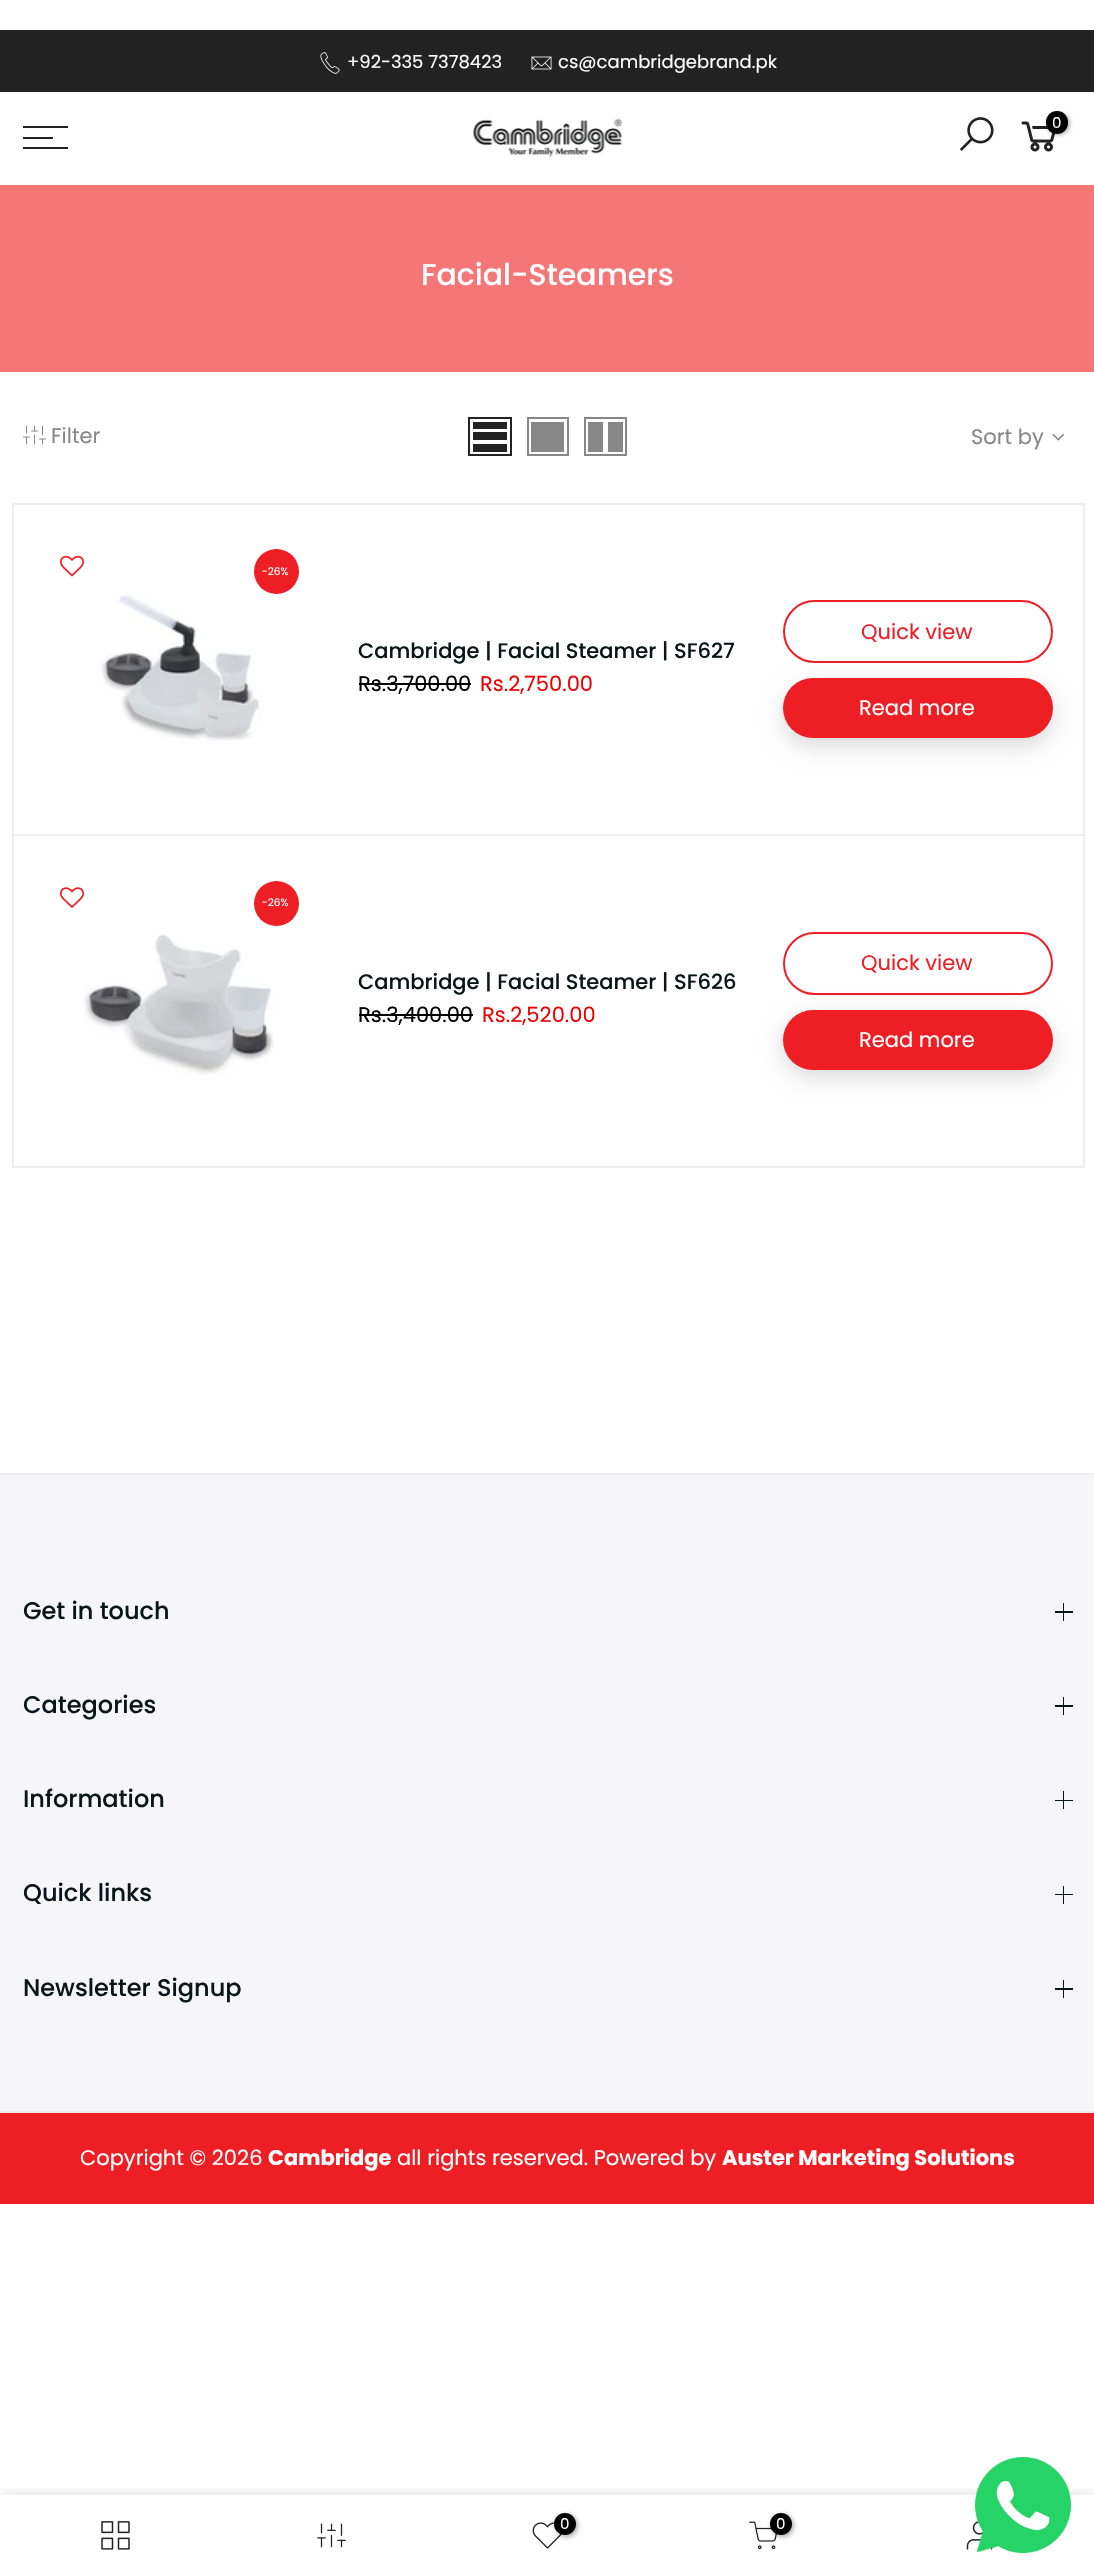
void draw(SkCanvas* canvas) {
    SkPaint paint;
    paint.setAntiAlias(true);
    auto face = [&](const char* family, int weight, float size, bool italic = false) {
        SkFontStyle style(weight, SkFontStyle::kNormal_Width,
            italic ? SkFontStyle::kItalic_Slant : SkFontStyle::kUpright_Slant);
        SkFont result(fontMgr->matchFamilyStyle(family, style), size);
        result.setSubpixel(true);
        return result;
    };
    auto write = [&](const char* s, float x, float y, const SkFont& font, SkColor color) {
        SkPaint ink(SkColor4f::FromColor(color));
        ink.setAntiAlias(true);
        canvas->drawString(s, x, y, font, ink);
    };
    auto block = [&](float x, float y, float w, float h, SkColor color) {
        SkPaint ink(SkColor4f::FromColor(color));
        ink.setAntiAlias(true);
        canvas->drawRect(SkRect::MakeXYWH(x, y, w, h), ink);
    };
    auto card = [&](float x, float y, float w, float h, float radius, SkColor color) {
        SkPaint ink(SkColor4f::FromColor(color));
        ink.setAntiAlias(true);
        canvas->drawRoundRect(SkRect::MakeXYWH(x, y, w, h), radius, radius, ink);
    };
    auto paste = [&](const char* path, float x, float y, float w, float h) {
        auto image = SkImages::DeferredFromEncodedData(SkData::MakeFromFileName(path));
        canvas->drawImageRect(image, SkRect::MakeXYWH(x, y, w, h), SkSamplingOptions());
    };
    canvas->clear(SK_ColorWHITE);
    block(0, 30, 1094, 62, SkColorSetRGB(34, 34, 34));
    paste("pic1.png", 320, 52, 20, 22);
    auto kFont1 = face("Poppins", 400, 18);
    write("+92-335 7378423", 347, 68, kFont1, SK_ColorWHITE);
    paste("pic2.png", 531, 56, 21, 14);
    write("cs@cambridgebrand.pk", 558, 68, kFont1, SK_ColorWHITE);
    block(23, 126, 45, 2, SkColorSetRGB(34, 34, 34));
    block(23, 137, 30, 2, SkColorSetRGB(34, 34, 34));
    block(23, 147, 45, 2, SkColorSetRGB(34, 34, 34));
    paste("pic3.png", 473, 118, 150, 40);
    paste("pic4.png", 959, 117, 35, 34);
    paste("pic5.png", 1021, 121, 35, 31);
    paint.setColor(SkColorSetARGB(77, 0, 0, 0));
    paint.setMaskFilter(SkMaskFilter::MakeBlur(kNormal_SkBlurStyle, 2));
    canvas->drawRoundRect(SkRect::MakeXYWH(1047, 113, 23, 22), 11, 11, paint);
    paint.setMaskFilter(nullptr);
    card(1046, 111, 22, 23, 11, SK_ColorBLACK);
    auto kFont2 = face("Poppins", 400, 15);
    write("0", 1052, 128, kFont2, SK_ColorWHITE);
    block(0, 185, 1094, 187, SkColorSetRGB(245, 118, 118));
    auto kFont3 = face("Poppins", 500, 30);
    write("Facial-Steamers", 421, 285, kFont3, SK_ColorWHITE);
    paste("pic6.png", 23, 425, 23, 20);
    auto kFont4 = face("Poppins", 400, 21);
    write("Filter", 51, 443, kFont4, SkColorSetRGB(135, 135, 135));
    paint.setStyle(SkPaint::kStroke_Style);
    paint.setStrokeWidth(2);
    paint.setColor(SkColorSetRGB(34, 34, 34));
    canvas->drawRect(SkRect::MakeXYWH(469, 418, 42, 37), paint);
    block(473, 444, 34, 8, SkColorSetRGB(34, 34, 34));
    block(473, 432, 34, 8, SkColorSetRGB(34, 34, 34));
    block(473, 422, 34, 7, SkColorSetRGB(34, 34, 34));
    paint.setColor(SkColorSetRGB(135, 135, 135));
    canvas->drawRect(SkRect::MakeXYWH(528, 418, 40, 37), paint);
    block(531, 422, 33, 30, SkColorSetRGB(135, 135, 135));
    canvas->drawRect(SkRect::MakeXYWH(585, 418, 41, 37), paint);
    block(608, 422, 15, 30, SkColorSetRGB(135, 135, 135));
    block(588, 422, 15, 30, SkColorSetRGB(135, 135, 135));
    write("Sort by", 971, 444, kFont4, SkColorSetRGB(135, 135, 135));
    paste("pic7.png", 1052, 433, 12, 8);
    paint.setColor(SkColorSetRGB(238, 238, 238));
    canvas->drawRect(SkRect::MakeXYWH(13, 504, 1071, 331), paint);
    paste("pic8.png", 60, 555, 24, 22);
    paint.setStyle(SkPaint::kFill_Style);
    paint.setColor(SkColorSetRGB(237, 30, 36));
    canvas->drawCircle(276.5f, 571.5f, 22.5f, paint);
    auto kFont5 = face("Poppins", 400, 10.5f);
    write("-26%", 262, 575, kFont5, SK_ColorWHITE);
    paste("pic9.png", 99, 594, 161, 147);
    auto kFont6 = face("Poppins", 500, 21);
    write("Cambridge | Facial Steamer | SF627", 358, 658, kFont6, SkColorSetRGB(8, 22, 26));
    write("Rs.3,700.00", 358, 691, kFont4, SK_ColorBLACK);
    block(359, 683, 112, 2, SK_ColorBLACK);
    write("Rs.2,750.00", 480, 691, kFont4, SkColorSetRGB(236, 1, 1));
    paint.setStyle(SkPaint::kStroke_Style);
    canvas->drawRoundRect(SkRect::MakeXYWH(784, 601, 268, 61), 30.5f, 30.5f, paint);
    write("Quick view", 861, 639, kFont4, SkColorSetRGB(237, 30, 36));
    paint.setStyle(SkPaint::kFill_Style);
    paint.setColor(SkColorSetARGB(38, 0, 0, 0));
    paint.setMaskFilter(SkMaskFilter::MakeBlur(kNormal_SkBlurStyle, 11));
    canvas->drawRoundRect(SkRect::MakeXYWH(783, 686, 270, 60), 30, 30, paint);
    paint.setMaskFilter(nullptr);
    card(783, 678, 270, 60, 30, SkColorSetRGB(237, 30, 36));
    write("Read more", 859, 715, kFont4, SK_ColorWHITE);
    block(1083, 836, 2, 331, SkColorSetRGB(238, 238, 238));
    block(12, 1166, 1073, 2, SkColorSetRGB(238, 238, 238));
    block(12, 836, 2, 331, SkColorSetRGB(238, 238, 238));
    paste("pic10.png", 60, 887, 24, 21);
    paint.setColor(SkColorSetRGB(237, 30, 36));
    canvas->drawCircle(276.5f, 903.5f, 22.5f, paint);
    write("-26%", 262, 906, kFont5, SK_ColorWHITE);
    paste("pic11.png", 83, 934, 191, 141);
    write("Cambridge | Facial Steamer | SF626", 358, 989, kFont6, SkColorSetRGB(8, 22, 26));
    write("Rs.3,400.00", 358, 1022, kFont4, SK_ColorBLACK);
    block(359, 1014, 114, 2, SK_ColorBLACK);
    write("Rs.2,520.00", 482, 1022, kFont4, SkColorSetRGB(236, 1, 1));
    paint.setStyle(SkPaint::kStroke_Style);
    canvas->drawRoundRect(SkRect::MakeXYWH(784, 933, 268, 61), 30.5f, 30.5f, paint);
    write("Quick view", 861, 970, kFont4, SkColorSetRGB(237, 30, 36));
    paint.setStyle(SkPaint::kFill_Style);
    paint.setColor(SkColorSetARGB(38, 0, 0, 0));
    paint.setMaskFilter(SkMaskFilter::MakeBlur(kNormal_SkBlurStyle, 11));
    canvas->drawRoundRect(SkRect::MakeXYWH(783, 1017, 270, 60), 30, 30, paint);
    paint.setMaskFilter(nullptr);
    card(783, 1010, 270, 60, 30, SkColorSetRGB(237, 30, 36));
    write("Read more", 859, 1047, kFont4, SK_ColorWHITE);
    block(0, 1473, 1094, 2, SkColorSetRGB(237, 237, 237));
    block(0, 2111, 1094, 2, SkColorSetRGB(237, 237, 237));
    block(0, 1475, 1094, 636, SkColorSetRGB(246, 246, 250));
    auto kFont7 = face("Poppins", 500, 24);
    write("Get in touch", 23, 1619, kFont7, SkColorSetRGB(8, 22, 26));
    block(1063, 1603, 1, 18, SkColorSetRGB(8, 22, 26));
    block(1055, 1611, 18, 2, SkColorSetRGB(8, 22, 26));
    write("Categories", 23, 1713, kFont7, SkColorSetRGB(8, 22, 26));
    block(1063, 1697, 1, 18, SkColorSetRGB(8, 22, 26));
    block(1055, 1705, 18, 2, SkColorSetRGB(8, 22, 26));
    write("Information", 23, 1807, kFont7, SkColorSetRGB(8, 22, 26));
    block(1063, 1791, 1, 18, SkColorSetRGB(8, 22, 26));
    block(1055, 1800, 18, 1, SkColorSetRGB(8, 22, 26));
    write("Quick links", 23, 1901, kFont7, SkColorSetRGB(8, 22, 26));
    block(1063, 1886, 1, 18, SkColorSetRGB(8, 22, 26));
    block(1055, 1894, 18, 1, SkColorSetRGB(8, 22, 26));
    write("Newsletter Signup", 23, 1996, kFont7, SkColorSetRGB(8, 22, 26));
    block(1063, 1980, 1, 18, SkColorSetRGB(8, 22, 26));
    block(1055, 1988, 18, 2, SkColorSetRGB(8, 22, 26));
    block(0, 2113, 1094, 91, SkColorSetRGB(237, 30, 36));
    write("Copyright © 2026", 80, 2165, kFont4, SK_ColorWHITE);
    auto kFont8 = face("Poppins", 700, 21);
    write("Cambridge", 268, 2165, kFont8, SK_ColorWHITE);
    write("all rights reserved. Powered by", 397, 2165, kFont4, SK_ColorWHITE);
    write("Auster Marketing Solutions", 722, 2165, kFont8, SK_ColorWHITE);
    canvas->save();
    canvas->clipRect(SkRect::MakeXYWH(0, 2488, 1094, 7));
    paint.setColor(SkColorSetARGB(31, 0, 0, 0));
    paint.setMaskFilter(SkMaskFilter::MakeBlur(kNormal_SkBlurStyle, 7));
    canvas->drawRect(SkRect::MakeXYWH(0, 2495, 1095, 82), paint);
    paint.setMaskFilter(nullptr);
    canvas->restore();
    paste("pic12.png", 101, 2521, 29, 29);
    paste("pic13.png", 317, 2523, 29, 25);
    paste("pic14.png", 532, 2522, 30, 27);
    paint.setColor(SkColorSetARGB(77, 0, 0, 0));
    paint.setMaskFilter(SkMaskFilter::MakeBlur(kNormal_SkBlurStyle, 2));
    canvas->drawRoundRect(SkRect::MakeXYWH(555, 2514, 23, 23), 11.5f, 11.5f, paint);
    paint.setMaskFilter(nullptr);
    paint.setColor(SK_ColorBLACK);
    canvas->drawCircle(565, 2524, 11, paint);
    write("0", 560, 2529, kFont2, SK_ColorWHITE);
    paste("pic15.png", 749, 2521, 28, 29);
    paint.setColor(SkColorSetARGB(77, 0, 0, 0));
    paint.setMaskFilter(SkMaskFilter::MakeBlur(kNormal_SkBlurStyle, 2));
    canvas->drawRoundRect(SkRect::MakeXYWH(771, 2514, 23, 23), 11.5f, 11.5f, paint);
    paint.setMaskFilter(nullptr);
    paint.setColor(SK_ColorBLACK);
    canvas->drawCircle(781, 2524, 11, paint);
    write("0", 776, 2529, kFont2, SK_ColorWHITE);
    paste("pic16.png", 966, 2521, 27, 29);
    paste("pic17.png", 975, 2457, 96, 96);
}
